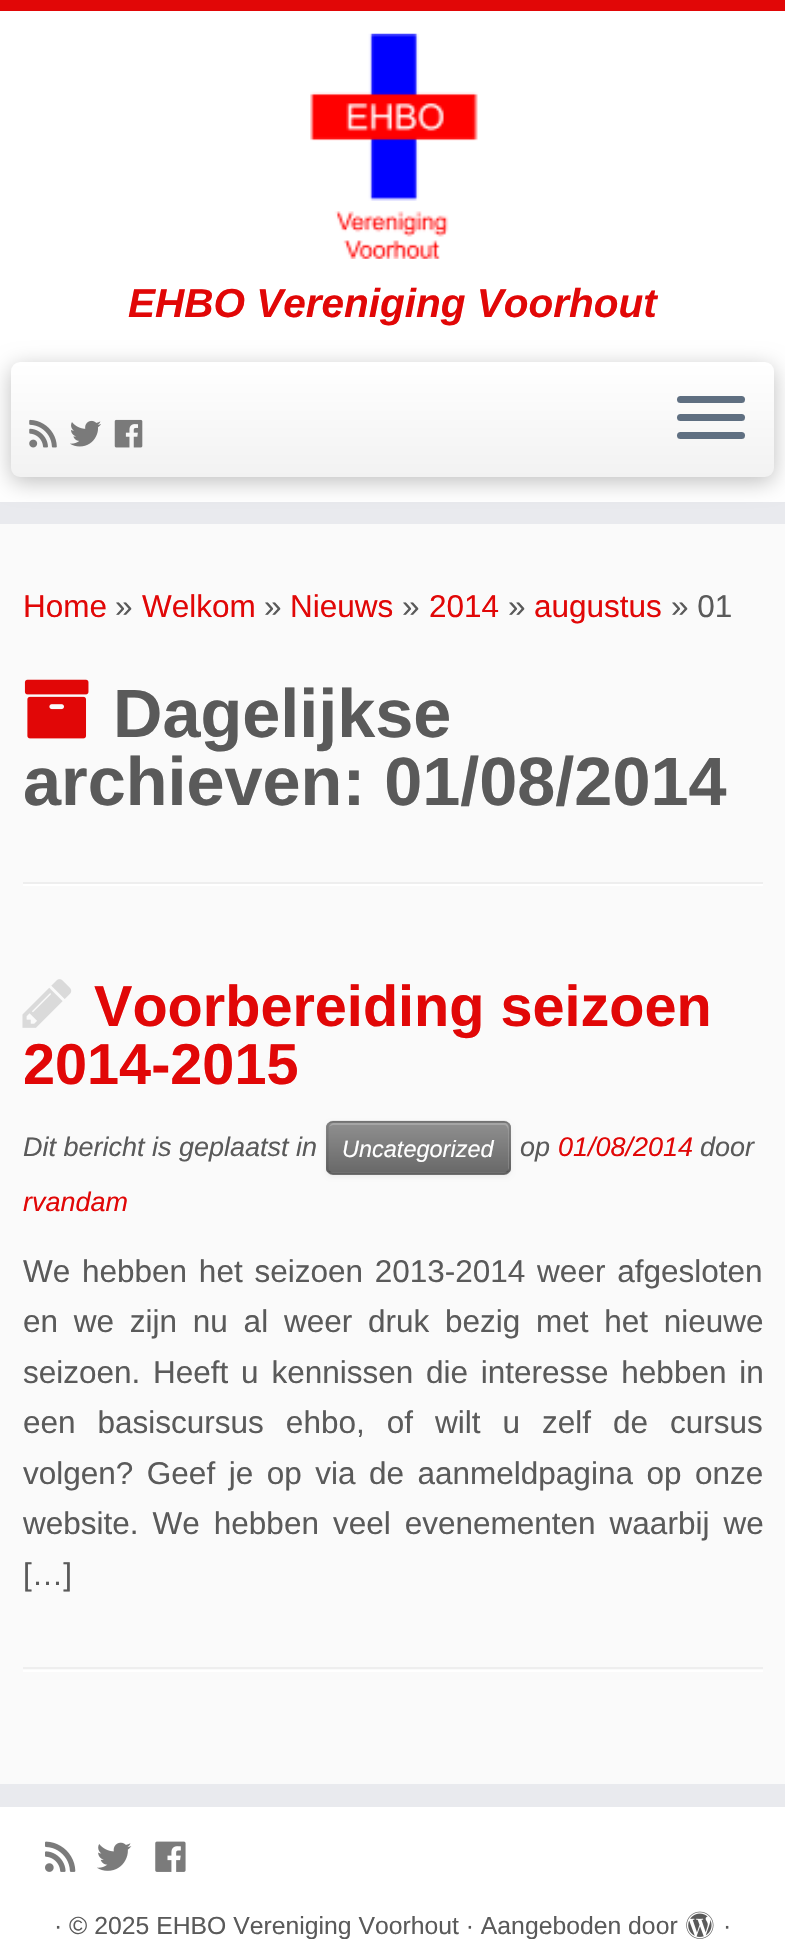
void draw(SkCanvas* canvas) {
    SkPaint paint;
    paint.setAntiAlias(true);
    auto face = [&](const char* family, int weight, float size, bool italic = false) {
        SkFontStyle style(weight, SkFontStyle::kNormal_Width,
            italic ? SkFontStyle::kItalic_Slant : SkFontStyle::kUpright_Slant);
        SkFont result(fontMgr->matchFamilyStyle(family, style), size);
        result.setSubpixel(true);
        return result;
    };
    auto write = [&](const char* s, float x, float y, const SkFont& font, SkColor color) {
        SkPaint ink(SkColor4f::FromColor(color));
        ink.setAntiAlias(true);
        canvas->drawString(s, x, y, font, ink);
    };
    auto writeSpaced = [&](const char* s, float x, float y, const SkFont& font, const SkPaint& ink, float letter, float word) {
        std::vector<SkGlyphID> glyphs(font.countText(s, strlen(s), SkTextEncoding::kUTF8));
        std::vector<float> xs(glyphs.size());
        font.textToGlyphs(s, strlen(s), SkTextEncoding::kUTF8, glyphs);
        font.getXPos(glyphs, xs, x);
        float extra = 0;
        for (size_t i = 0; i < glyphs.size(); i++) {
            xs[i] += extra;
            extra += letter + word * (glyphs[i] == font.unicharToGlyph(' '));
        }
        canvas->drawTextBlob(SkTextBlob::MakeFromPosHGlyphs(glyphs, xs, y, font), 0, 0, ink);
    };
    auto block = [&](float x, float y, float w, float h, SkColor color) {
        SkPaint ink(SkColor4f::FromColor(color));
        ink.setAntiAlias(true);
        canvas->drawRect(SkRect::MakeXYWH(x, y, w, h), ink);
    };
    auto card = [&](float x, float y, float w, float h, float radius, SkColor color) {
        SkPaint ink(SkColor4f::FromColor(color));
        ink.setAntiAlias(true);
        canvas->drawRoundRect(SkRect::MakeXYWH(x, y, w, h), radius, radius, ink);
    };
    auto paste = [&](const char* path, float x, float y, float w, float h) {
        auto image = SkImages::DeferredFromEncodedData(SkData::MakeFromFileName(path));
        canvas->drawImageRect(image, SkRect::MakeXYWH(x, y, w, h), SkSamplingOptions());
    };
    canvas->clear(SkColorSetRGB(250, 250, 250));
    block(0, 11, 785, 491, SK_ColorWHITE);
    block(0, 0, 785, 11, SkColorSetRGB(225, 7, 7));
    block(0, 502, 785, 22, SkColorSetRGB(233, 234, 238));
    paste("pic1.png", 310, 33, 168, 226);
    auto kFont1 = face("Liberation Sans", 700, 40.5f, true);
    write("EHBO Vereniging Voorhout", 128, 317, kFont1, SkColorSetRGB(225, 7, 7));
    paint.setColor(SkColorSetARGB(64, 0, 0, 0));
    paint.setMaskFilter(SkMaskFilter::MakeBlur(kNormal_SkBlurStyle, 11));
    canvas->drawRoundRect(SkRect::MakeXYWH(11, 367, 763, 115), 9, 9, paint);
    paint.setMaskFilter(nullptr);
    {
        const SkColor colors[] = {SK_ColorWHITE, SkColorSetRGB(242, 242, 242)};
        const float stops[] = {0, 1};
        const SkPoint ends[] = {{393, 362}, {393, 477}};
        paint.setShader(SkGradientShader::MakeLinear(ends, colors, stops, 2, SkTileMode::kClamp));
        paint.setAlpha(255);
    }
    canvas->drawRoundRect(SkRect::MakeXYWH(11, 362, 763, 115), 9, 9, paint);
    paste("pic2.png", 29, 419, 28, 29);
    paste("pic3.png", 70, 420, 31, 27);
    paste("pic4.png", 114, 419, 29, 29);
    card(677, 396, 68, 7, 3.5f, SkColorSetRGB(95, 111, 129));
    card(677, 414, 68, 7, 3.5f, SkColorSetRGB(95, 111, 129));
    card(677, 432, 68, 7, 3.5f, SkColorSetRGB(95, 111, 129));
    auto kFont2 = face("Liberation Sans", 400, 31.5f);
    write("Home", 23, 617, kFont2, SkColorSetRGB(225, 7, 7));
    write("»", 115, 617, kFont2, SkColorSetRGB(90, 90, 90));
    write("Welkom", 142, 617, kFont2, SkColorSetRGB(225, 7, 7));
    write("»", 264, 617, kFont2, SkColorSetRGB(90, 90, 90));
    write("Nieuws", 290, 617, kFont2, SkColorSetRGB(225, 7, 7));
    write("»", 402, 617, kFont2, SkColorSetRGB(90, 90, 90));
    write("2014", 429, 617, kFont2, SkColorSetRGB(225, 7, 7));
    write("»", 508, 617, kFont2, SkColorSetRGB(90, 90, 90));
    write("augustus", 534, 617, kFont2, SkColorSetRGB(225, 7, 7));
    write("» 01", 671, 617, kFont2, SkColorSetRGB(90, 90, 90));
    paste("pic5.png", 24, 679, 65, 60);
    auto kFont3 = face("Liberation Sans", 700, 68.4f);
    write("Dagelijkse", 113, 737, kFont3, SkColorSetRGB(90, 90, 90));
    write("archieven: 01/08/2014", 23, 805, kFont3, SkColorSetRGB(90, 90, 90));
    block(23, 882, 740, 2, SkColorSetRGB(238, 238, 238));
    block(23, 884, 740, 2, SK_ColorWHITE);
    paste("pic6.png", 22, 979, 50, 49);
    auto kFont4 = face("Liberation Sans", 700, 57.6f);
    write("Voorbereiding seizoen", 94, 1026, kFont4, SkColorSetRGB(225, 7, 7));
    write("2014-2015", 23, 1084, kFont4, SkColorSetRGB(225, 7, 7));
    auto kFont5 = face("Liberation Sans", 400, 27, true);
    write("Dit bericht is geplaatst in", 23, 1156, kFont5, SkColorSetRGB(90, 90, 90));
    paint.setShader(nullptr);
    paint.setColor(SkColorSetARGB(13, 0, 0, 0));
    paint.setMaskFilter(SkMaskFilter::MakeBlur(kNormal_SkBlurStyle, 2));
    canvas->drawRoundRect(SkRect::MakeXYWH(326, 1123, 185, 54), 7, 7, paint);
    paint.setMaskFilter(nullptr);
    card(326, 1121, 185, 54, 7, SkColorSetRGB(128, 128, 128));
    canvas->save();
    canvas->clipPath(SkPathBuilder().moveTo(333, 1121).lineTo(504, 1121).cubicTo(508, 1121, 511, 1124, 511, 1128).lineTo(511, 1168).cubicTo(511, 1172, 508, 1175, 504, 1175).lineTo(333, 1175).cubicTo(329, 1175, 326, 1172, 326, 1168).lineTo(326, 1128).cubicTo(326, 1124, 329, 1121, 333, 1121).close().detach(), true);
    {
        const SkColor colors[] = {SkColorSetRGB(143, 143, 143), SkColorSetRGB(105, 105, 105)};
        const float stops[] = {0, 1};
        const SkPoint ends[] = {{419, 1123}, {419, 1172}};
        paint.setShader(SkGradientShader::MakeLinear(ends, colors, stops, 2, SkTileMode::kClamp));
        paint.setAlpha(255);
    }
    canvas->drawRect(SkRect::MakeXYWH(326, 1123, 185, 49), paint);
    canvas->restore();
    paint.setShader(nullptr);
    paint.setColor(SkColorSetARGB(51, 255, 255, 255));
    canvas->drawPath(SkPathBuilder().moveTo(333, 1125).lineTo(504, 1125).cubicTo(506, 1125, 508, 1127, 508, 1130).lineTo(508, 1170).cubicTo(509, 1169, 509, 1168, 509, 1167).lineTo(509, 1128).cubicTo(509, 1125, 507, 1123, 504, 1123).lineTo(334, 1123).cubicTo(332, 1123, 330, 1125, 329, 1127).cubicTo(330, 1126, 332, 1125, 333, 1125).close().detach(), paint);
    paint.setStyle(SkPaint::kStroke_Style);
    paint.setStrokeWidth(2.2f);
    paint.setColor(SkColorSetARGB(64, 0, 0, 0));
    canvas->drawPath(SkPathBuilder().moveTo(508, 1171.5f).cubicTo(507, 1173, 505.5f, 1173.5f, 504, 1173.5f).lineTo(333, 1173.5f).cubicTo(331.5f, 1173.5f, 330, 1173, 329, 1171.5f).detach(), paint);
    paint.setColor(SkColorSetARGB(26, 0, 0, 0));
    canvas->drawPath(SkPathBuilder().moveTo(329, 1171.5f).cubicTo(328, 1170.5f, 327.5f, 1169, 327.5f, 1168).lineTo(327.5f, 1127).cubicTo(327.5f, 1126, 328, 1124.5f, 329, 1123.5f).cubicTo(330, 1122, 331.5f, 1121.5f, 333, 1121.5f).lineTo(504, 1121.5f).cubicTo(505.5f, 1121.5f, 507, 1122, 508, 1123.5f).cubicTo(509, 1124.5f, 509.5f, 1126, 509.5f, 1127).lineTo(509.5f, 1168).cubicTo(509.5f, 1169, 509, 1170.5f, 508, 1171.5f).detach(), paint);
    auto kFont6 = face("Liberation Sans", 400, 23.5f, true);
    write("Uncategorized", 342, 1157, kFont6, SK_ColorWHITE);
    write("op", 520, 1156, kFont5, SkColorSetRGB(90, 90, 90));
    write("01/08/2014", 558, 1156, kFont5, SkColorSetRGB(225, 7, 7));
    write("door", 700, 1156, kFont5, SkColorSetRGB(90, 90, 90));
    write("rvandam", 23, 1211, kFont5, SkColorSetRGB(225, 7, 7));
    paint.setStyle(SkPaint::kFill_Style);
    paint.setColor(SkColorSetRGB(90, 90, 90));
    writeSpaced("We hebben het seizoen 2013-2014 weer afgesloten", 23, 1282, kFont2, paint, 0, 3);
    writeSpaced("en we zijn nu al weer druk bezig met het nieuwe", 23, 1332, kFont2, paint, 0, 7);
    writeSpaced("seizoen. Heeft u kennissen die interesse hebben in", 23, 1383, kFont2, paint, 0, 4);
    writeSpaced("een basiscursus ehbo, of wilt u zelf de cursus", 23, 1433, kFont2, paint, 0, 13.25f);
    writeSpaced("volgen? Geef je op via de aanmeldpagina op onze", 23, 1484, kFont2, paint, 0, 4.75f);
    writeSpaced("website. We hebben veel evenementen waarbij we", 23, 1534, kFont2, paint, 0, 5.25f);
    write("[…]", 23, 1585, kFont2, SkColorSetRGB(90, 90, 90));
    block(23, 1667, 740, 2, SkColorSetRGB(238, 238, 238));
    block(23, 1670, 740, 2, SK_ColorWHITE);
    block(0, 1784, 785, 23, SkColorSetRGB(233, 234, 238));
    block(0, 1807, 785, 132, SK_ColorWHITE);
    paste("pic7.png", 45, 1841, 31, 31);
    paste("pic8.png", 97, 1842, 35, 29);
    paste("pic9.png", 155, 1841, 31, 31);
    auto kFont7 = face("Liberation Sans", 400, 24.75f);
    write("· © 2025 EHBO Vereniging Voorhout · Aangeboden door", 54, 1934, kFont7, SkColorSetRGB(90, 90, 90));
    paste("pic10.png", 686, 1911, 28, 28);
    write("·", 723, 1934, kFont7, SkColorSetRGB(90, 90, 90));
}
